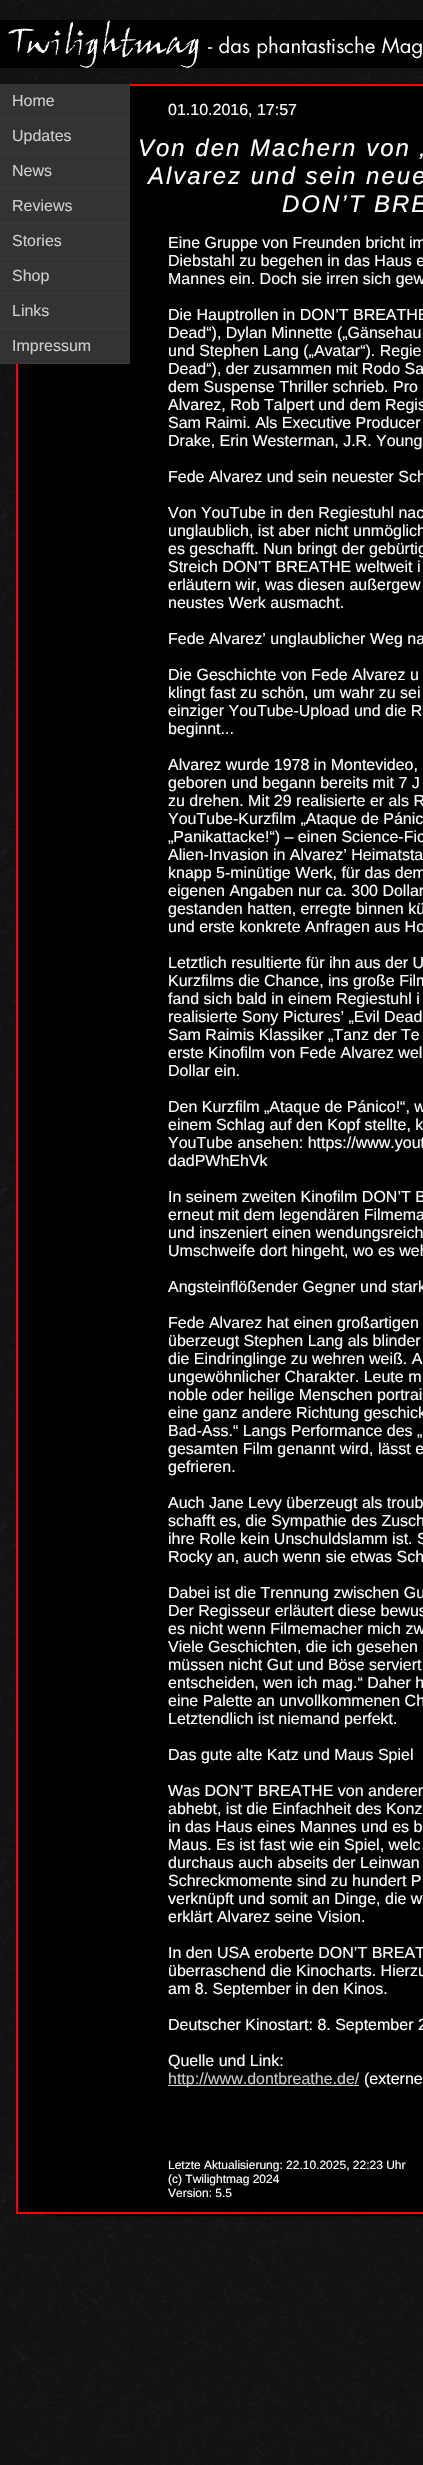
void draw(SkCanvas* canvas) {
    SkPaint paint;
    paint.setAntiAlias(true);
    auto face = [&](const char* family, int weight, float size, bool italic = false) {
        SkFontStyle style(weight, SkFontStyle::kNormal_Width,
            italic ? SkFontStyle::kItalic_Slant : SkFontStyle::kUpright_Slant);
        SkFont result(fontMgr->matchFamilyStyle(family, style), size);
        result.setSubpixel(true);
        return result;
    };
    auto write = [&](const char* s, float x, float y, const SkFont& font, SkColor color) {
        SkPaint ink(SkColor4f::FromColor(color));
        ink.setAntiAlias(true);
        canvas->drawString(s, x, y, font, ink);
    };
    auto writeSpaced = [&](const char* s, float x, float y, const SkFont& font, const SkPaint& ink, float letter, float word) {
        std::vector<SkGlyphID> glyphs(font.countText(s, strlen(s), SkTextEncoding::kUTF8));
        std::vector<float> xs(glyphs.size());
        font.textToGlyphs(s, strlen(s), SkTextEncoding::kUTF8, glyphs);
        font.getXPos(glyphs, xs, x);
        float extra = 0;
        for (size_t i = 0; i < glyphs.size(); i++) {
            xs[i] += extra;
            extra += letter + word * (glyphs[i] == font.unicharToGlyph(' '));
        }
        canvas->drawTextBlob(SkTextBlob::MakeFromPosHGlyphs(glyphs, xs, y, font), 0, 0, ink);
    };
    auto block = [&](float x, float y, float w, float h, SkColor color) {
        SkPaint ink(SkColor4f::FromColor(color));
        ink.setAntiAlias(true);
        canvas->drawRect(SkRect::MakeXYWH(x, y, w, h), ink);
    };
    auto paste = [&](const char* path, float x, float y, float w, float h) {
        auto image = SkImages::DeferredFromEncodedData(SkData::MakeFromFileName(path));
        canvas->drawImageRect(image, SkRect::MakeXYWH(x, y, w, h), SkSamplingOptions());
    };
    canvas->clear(SK_ColorWHITE);
    paste("pic1.png", 0, 0, 423, 2465);
    paste("pic2.png", 0, 20, 423, 48);
    paint.setColor(SK_ColorBLACK);
    paint.setMaskFilter(SkMaskFilter::MakeBlur(kNormal_SkBlurStyle, 1));
    canvas->drawRoundRect(SkRect::MakeXYWH(18, 86, 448, 2130), 40, 40, paint);
    paint.setMaskFilter(nullptr);
    canvas->drawRect(SkRect::MakeXYWH(17, 85, 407, 2128), paint);
    paint.setStyle(SkPaint::kStroke_Style);
    paint.setStrokeWidth(2);
    paint.setColor(SkColorSetRGB(255, 0, 0));
    canvas->drawRect(SkRect::MakeXYWH(17, 85, 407, 2128), paint);
    block(0, 84, 130, 34, SkColorSetRGB(51, 51, 51));
    block(0, 118, 130, 1, SkColorSetRGB(57, 57, 57));
    auto kFont1 = face("Liberation Sans", 400, 16);
    write("Home", 12, 106, kFont1, SkColorSetRGB(204, 204, 204));
    block(0, 119, 130, 34, SkColorSetRGB(51, 51, 51));
    block(0, 153, 130, 1, SkColorSetRGB(57, 57, 57));
    write("Updates", 12, 141, kFont1, SkColorSetRGB(204, 204, 204));
    block(0, 154, 130, 34, SkColorSetRGB(51, 51, 51));
    block(0, 188, 130, 1, SkColorSetRGB(57, 57, 57));
    write("News", 12, 176, kFont1, SkColorSetRGB(204, 204, 204));
    block(0, 189, 130, 34, SkColorSetRGB(51, 51, 51));
    block(0, 223, 130, 1, SkColorSetRGB(57, 57, 57));
    write("Reviews", 12, 211, kFont1, SkColorSetRGB(204, 204, 204));
    block(0, 224, 130, 34, SkColorSetRGB(51, 51, 51));
    block(0, 258, 130, 1, SkColorSetRGB(57, 57, 57));
    write("Stories", 12, 246, kFont1, SkColorSetRGB(204, 204, 204));
    block(0, 259, 130, 34, SkColorSetRGB(51, 51, 51));
    block(0, 293, 130, 1, SkColorSetRGB(57, 57, 57));
    write("Shop", 12, 281, kFont1, SkColorSetRGB(204, 204, 204));
    block(0, 294, 130, 34, SkColorSetRGB(51, 51, 51));
    block(0, 328, 130, 1, SkColorSetRGB(57, 57, 57));
    write("Links", 12, 316, kFont1, SkColorSetRGB(204, 204, 204));
    block(0, 329, 130, 34, SkColorSetRGB(51, 51, 51));
    block(0, 363, 130, 1, SkColorSetRGB(57, 57, 57));
    write("Impressum", 12, 351, kFont1, SkColorSetRGB(204, 204, 204));
    write("01.10.2016, 17:57", 168, 115, kFont1, SK_ColorWHITE);
    auto kFont2 = face("Liberation Sans", 400, 24, true);
    paint.setStyle(SkPaint::kFill_Style);
    paint.setColor(SK_ColorWHITE);
    writeSpaced("Von den Machern von ‚", 138, 156, kFont2, paint, 2, 0);
    writeSpaced("Alvarez und sein neue", 148, 184, kFont2, paint, 2, 0);
    writeSpaced("DON’T BRE", 282, 212, kFont2, paint, 2, 0);
    write("Eine Gruppe von Freunden bricht im", 168, 248, kFont1, SK_ColorWHITE);
    write("Diebstahl zu begehen in das Haus e", 168, 266, kFont1, SK_ColorWHITE);
    write("Mannes ein. Doch sie irren sich gew", 168, 284, kFont1, SK_ColorWHITE);
    write("Die Hauptrollen in DON’T BREATHE", 168, 320, kFont1, SK_ColorWHITE);
    write("Dead“), Dylan Minnette („Gänsehau", 168, 338, kFont1, SK_ColorWHITE);
    write("und Stephen Lang („Avatar“). Regie", 168, 356, kFont1, SK_ColorWHITE);
    write("Dead“), der zusammen mit Rodo Sa", 168, 374, kFont1, SK_ColorWHITE);
    write("dem Suspense Thriller schrieb. Pro", 168, 392, kFont1, SK_ColorWHITE);
    write("Alvarez, Rob Talpert und dem Regis", 168, 410, kFont1, SK_ColorWHITE);
    write("Sam Raimi. Als Executive Producer", 168, 428, kFont1, SK_ColorWHITE);
    write("Drake, Erin Westerman, J.R. Young", 168, 446, kFont1, SK_ColorWHITE);
    write("Fede Alvarez und sein neuester Sch", 168, 482, kFont1, SK_ColorWHITE);
    write("Von YouTube in den Regiestuhl nac", 168, 518, kFont1, SK_ColorWHITE);
    write("unglaublich, ist aber nicht unmöglich", 168, 536, kFont1, SK_ColorWHITE);
    write("es geschafft. Nun bringt der gebürtig", 168, 554, kFont1, SK_ColorWHITE);
    write("Streich DON’T BREATHE weltweit i", 168, 572, kFont1, SK_ColorWHITE);
    write("erläutern wir, was diesen außergew", 168, 590, kFont1, SK_ColorWHITE);
    write("neustes Werk ausmacht.", 168, 608, kFont1, SK_ColorWHITE);
    write("Fede Alvarez’ unglaublicher Weg na", 168, 644, kFont1, SK_ColorWHITE);
    write("Die Geschichte von Fede Alvarez u", 168, 680, kFont1, SK_ColorWHITE);
    write("klingt fast zu schön, um wahr zu sei", 168, 698, kFont1, SK_ColorWHITE);
    write("einziger YouTube-Upload und die R", 168, 716, kFont1, SK_ColorWHITE);
    write("beginnt...", 168, 734, kFont1, SK_ColorWHITE);
    write("Alvarez wurde 1978 in Montevideo,", 168, 770, kFont1, SK_ColorWHITE);
    write("geboren und begann bereits mit 7 J", 168, 788, kFont1, SK_ColorWHITE);
    write("zu drehen. Mit 29 realisierte er als R", 168, 806, kFont1, SK_ColorWHITE);
    write("YouTube-Kurzfilm „Ataque de Pánic", 168, 824, kFont1, SK_ColorWHITE);
    write("„Panikattacke!“) – einen Science-Fic", 168, 842, kFont1, SK_ColorWHITE);
    write("Alien-Invasion in Alvarez’ Heimatsta", 168, 860, kFont1, SK_ColorWHITE);
    write("knapp 5-minütige Werk, für das dem", 168, 878, kFont1, SK_ColorWHITE);
    write("eigenen Angaben nur ca. 300 Dollar", 168, 896, kFont1, SK_ColorWHITE);
    write("gestanden hatten, erregte binnen kü", 168, 914, kFont1, SK_ColorWHITE);
    write("und erste konkrete Anfragen aus Ho", 168, 932, kFont1, SK_ColorWHITE);
    write("Letztlich resultierte für ihn aus der U", 168, 968, kFont1, SK_ColorWHITE);
    write("Kurzfilms die Chance, ins große Film", 168, 986, kFont1, SK_ColorWHITE);
    write("fand sich bald in einem Regiestuhl i", 168, 1004, kFont1, SK_ColorWHITE);
    write("realisierte Sony Pictures’ „Evil Dead", 168, 1022, kFont1, SK_ColorWHITE);
    write("Sam Raimis Klassiker „Tanz der Te", 168, 1040, kFont1, SK_ColorWHITE);
    write("erste Kinofilm von Fede Alvarez wel", 168, 1058, kFont1, SK_ColorWHITE);
    write("Dollar ein.", 168, 1076, kFont1, SK_ColorWHITE);
    write("Den Kurzfilm „Ataque de Pánico!“, w", 168, 1112, kFont1, SK_ColorWHITE);
    write("einem Schlag auf den Kopf stellte, k", 168, 1130, kFont1, SK_ColorWHITE);
    write("YouTube ansehen: https://www.yout", 168, 1148, kFont1, SK_ColorWHITE);
    write("dadPWhEhVk", 168, 1166, kFont1, SK_ColorWHITE);
    write("In seinem zweiten Kinofilm DON’T B", 168, 1202, kFont1, SK_ColorWHITE);
    write("erneut mit dem legendären Filmema", 168, 1220, kFont1, SK_ColorWHITE);
    write("und inszeniert einen wendungsreich", 168, 1238, kFont1, SK_ColorWHITE);
    write("Umschweife dort hingeht, wo es weh", 168, 1256, kFont1, SK_ColorWHITE);
    write("Angsteinflößender Gegner und stark", 168, 1292, kFont1, SK_ColorWHITE);
    write("Fede Alvarez hat einen großartigen", 168, 1328, kFont1, SK_ColorWHITE);
    write("überzeugt Stephen Lang als blinder", 168, 1346, kFont1, SK_ColorWHITE);
    write("die Eindringlinge zu wehren weiß. A", 168, 1364, kFont1, SK_ColorWHITE);
    write("ungewöhnlicher Charakter. Leute m", 168, 1382, kFont1, SK_ColorWHITE);
    write("noble oder heilige Menschen portrai", 168, 1400, kFont1, SK_ColorWHITE);
    write("eine ganz andere Richtung geschick", 168, 1418, kFont1, SK_ColorWHITE);
    write("Bad-Ass.“ Langs Performance des „", 168, 1436, kFont1, SK_ColorWHITE);
    write("gesamten Film genannt wird, lässt e", 168, 1454, kFont1, SK_ColorWHITE);
    write("gefrieren.", 168, 1472, kFont1, SK_ColorWHITE);
    write("Auch Jane Levy überzeugt als troub", 168, 1508, kFont1, SK_ColorWHITE);
    write("schafft es, die Sympathie des Zusch", 168, 1526, kFont1, SK_ColorWHITE);
    write("ihre Rolle kein Unschuldslamm ist. S", 168, 1544, kFont1, SK_ColorWHITE);
    write("Rocky an, auch wenn sie etwas Sch", 168, 1562, kFont1, SK_ColorWHITE);
    write("Dabei ist die Trennung zwischen Gu", 168, 1598, kFont1, SK_ColorWHITE);
    write("Der Regisseur erläutert diese bewus", 168, 1616, kFont1, SK_ColorWHITE);
    write("es nicht wenn Filmemacher mich zw", 168, 1634, kFont1, SK_ColorWHITE);
    write("Viele Geschichten, die ich gesehen", 168, 1652, kFont1, SK_ColorWHITE);
    write("müssen nicht Gut und Böse serviert", 168, 1670, kFont1, SK_ColorWHITE);
    write("entscheiden, wen ich mag.“ Daher h", 168, 1688, kFont1, SK_ColorWHITE);
    write("eine Palette an unvollkommenen Ch", 168, 1706, kFont1, SK_ColorWHITE);
    write("Letztendlich ist niemand perfekt.", 168, 1724, kFont1, SK_ColorWHITE);
    write("Das gute alte Katz und Maus Spiel", 168, 1760, kFont1, SK_ColorWHITE);
    write("Was DON’T BREATHE von anderen", 168, 1796, kFont1, SK_ColorWHITE);
    write("abhebt, ist die Einfachheit des Konz", 168, 1814, kFont1, SK_ColorWHITE);
    write("in das Haus eines Mannes und es b", 168, 1832, kFont1, SK_ColorWHITE);
    write("Maus. Es ist fast wie ein Spiel, welc", 168, 1850, kFont1, SK_ColorWHITE);
    write("durchaus auch abseits der Leinwan", 168, 1868, kFont1, SK_ColorWHITE);
    write("Schreckmomente sind zu hundert P", 168, 1886, kFont1, SK_ColorWHITE);
    write("verknüpft und somit an Dinge, die w", 168, 1904, kFont1, SK_ColorWHITE);
    write("erklärt Alvarez seine Vision.", 168, 1922, kFont1, SK_ColorWHITE);
    write("In den USA eroberte DON’T BREAT", 168, 1958, kFont1, SK_ColorWHITE);
    write("überraschend die Kinocharts. Hierzu", 168, 1976, kFont1, SK_ColorWHITE);
    write("am 8. September in den Kinos.", 168, 1994, kFont1, SK_ColorWHITE);
    write("Deutscher Kinostart: 8. September 2", 168, 2030, kFont1, SK_ColorWHITE);
    write("Quelle und Link:", 168, 2066, kFont1, SK_ColorWHITE);
    block(168, 2085, 191, 1, SkColorSetRGB(204, 204, 204));
    write("http://www.dontbreathe.de/", 168, 2084, kFont1, SkColorSetRGB(204, 204, 204));
    write("(externe", 364, 2084, kFont1, SK_ColorWHITE);
    auto kFont3 = face("Liberation Sans", 400, 12);
    write("Letzte Aktualisierung: 22.10.2025, 22:23 Uhr", 168, 2169, kFont3, SK_ColorWHITE);
    write("(c) Twilightmag 2024", 168, 2183, kFont3, SK_ColorWHITE);
    write("Version: 5.5", 168, 2197, kFont3, SK_ColorWHITE);
}
